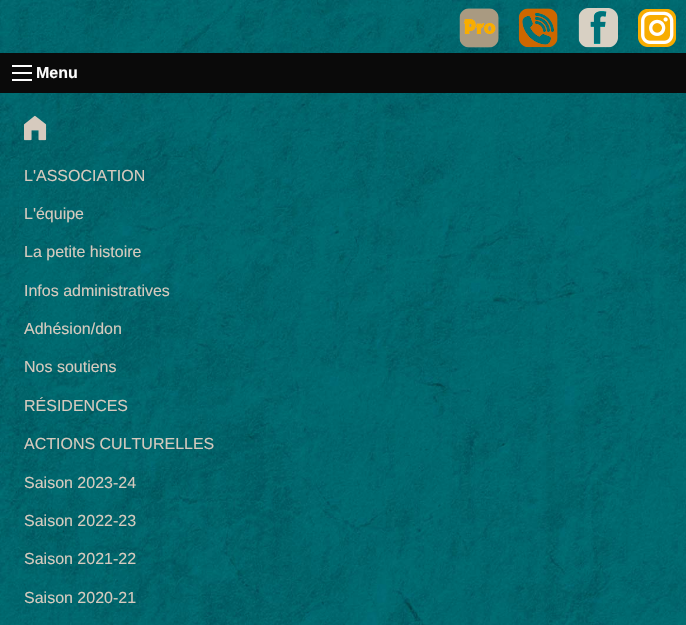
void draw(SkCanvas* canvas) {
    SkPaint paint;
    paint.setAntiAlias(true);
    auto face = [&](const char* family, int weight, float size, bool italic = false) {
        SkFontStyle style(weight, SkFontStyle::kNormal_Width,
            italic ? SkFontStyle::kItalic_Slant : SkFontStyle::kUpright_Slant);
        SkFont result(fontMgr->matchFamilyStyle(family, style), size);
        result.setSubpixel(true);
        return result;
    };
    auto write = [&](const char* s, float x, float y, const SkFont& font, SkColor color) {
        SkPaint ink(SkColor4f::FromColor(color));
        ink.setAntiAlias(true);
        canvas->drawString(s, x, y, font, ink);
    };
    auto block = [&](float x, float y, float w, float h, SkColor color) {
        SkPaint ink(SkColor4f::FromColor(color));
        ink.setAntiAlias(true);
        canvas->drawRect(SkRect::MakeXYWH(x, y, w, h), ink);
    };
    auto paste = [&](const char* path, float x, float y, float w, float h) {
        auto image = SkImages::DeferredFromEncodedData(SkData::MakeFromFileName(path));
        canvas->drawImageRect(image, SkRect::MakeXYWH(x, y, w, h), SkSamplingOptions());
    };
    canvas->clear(SK_ColorWHITE);
    paste("pic1.png", 0, 0, 686, 625);
    paste("pic2.png", 459, 8, 40, 40);
    paste("pic3.png", 518, 8, 40, 40);
    paste("pic4.png", 578, 8, 40, 40);
    paste("pic5.png", 638, 9, 38, 38);
    block(0, 53, 686, 40, SkColorSetRGB(10, 10, 10));
    block(12, 79, 20, 2, SkColorSetRGB(254, 254, 254));
    block(12, 72, 20, 2, SkColorSetRGB(254, 254, 254));
    block(12, 65, 20, 2, SkColorSetRGB(254, 254, 254));
    auto kFont1 = face("Liberation Sans", 700, 16);
    write("Menu", 36, 78, kFont1, SkColorSetRGB(254, 254, 254));
    paste("pic6.png", 24, 115, 23, 26);
    auto kFont2 = face("Liberation Sans", 400, 16);
    write("L'ASSOCIATION", 24, 181, kFont2, SkColorSetRGB(214, 202, 190));
    write("L'équipe", 24, 219, kFont2, SkColorSetRGB(214, 202, 190));
    write("La petite histoire", 24, 257, kFont2, SkColorSetRGB(214, 202, 190));
    write("Infos administratives", 24, 296, kFont2, SkColorSetRGB(214, 202, 190));
    write("Adhésion/don", 24, 334, kFont2, SkColorSetRGB(214, 202, 190));
    write("Nos soutiens", 24, 372, kFont2, SkColorSetRGB(214, 202, 190));
    write("RÉSIDENCES", 24, 411, kFont2, SkColorSetRGB(214, 202, 190));
    write("ACTIONS CULTURELLES", 24, 449, kFont2, SkColorSetRGB(214, 202, 190));
    write("Saison 2023-24", 24, 488, kFont2, SkColorSetRGB(214, 202, 190));
    write("Saison 2022-23", 24, 526, kFont2, SkColorSetRGB(214, 202, 190));
    write("Saison 2021-22", 24, 564, kFont2, SkColorSetRGB(214, 202, 190));
    write("Saison 2020-21", 24, 603, kFont2, SkColorSetRGB(214, 202, 190));
}
